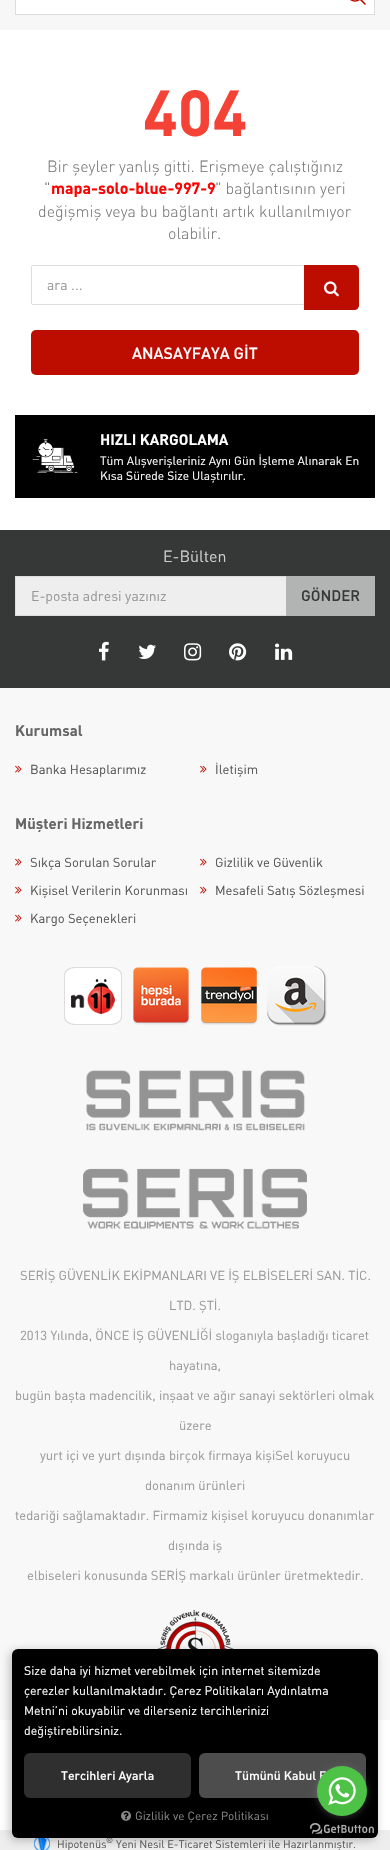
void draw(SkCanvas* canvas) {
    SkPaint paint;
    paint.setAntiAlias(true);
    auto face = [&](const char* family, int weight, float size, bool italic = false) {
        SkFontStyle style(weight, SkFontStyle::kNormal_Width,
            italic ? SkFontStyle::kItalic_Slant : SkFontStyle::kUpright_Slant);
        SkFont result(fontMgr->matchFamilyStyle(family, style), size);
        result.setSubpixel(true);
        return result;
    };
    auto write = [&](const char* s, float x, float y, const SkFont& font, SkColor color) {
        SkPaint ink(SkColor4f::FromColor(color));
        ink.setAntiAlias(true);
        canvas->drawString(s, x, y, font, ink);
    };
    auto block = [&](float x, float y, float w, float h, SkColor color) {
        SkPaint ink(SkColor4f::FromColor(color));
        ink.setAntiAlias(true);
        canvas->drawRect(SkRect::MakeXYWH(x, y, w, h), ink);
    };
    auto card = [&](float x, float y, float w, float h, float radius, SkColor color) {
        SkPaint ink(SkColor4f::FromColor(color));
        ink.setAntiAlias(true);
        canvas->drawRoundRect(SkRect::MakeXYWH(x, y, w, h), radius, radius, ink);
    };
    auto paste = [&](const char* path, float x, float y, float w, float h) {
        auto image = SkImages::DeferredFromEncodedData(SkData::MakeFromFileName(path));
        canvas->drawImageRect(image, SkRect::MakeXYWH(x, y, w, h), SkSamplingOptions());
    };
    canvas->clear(SK_ColorWHITE);
    block(0, 0, 390, 30, SkColorSetRGB(247, 247, 247));
    paint.setColor(SK_ColorWHITE);
    canvas->drawRect(SkRect::MakeXYWH(15.5f, -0.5f, 359, 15), paint);
    paint.setStyle(SkPaint::kStroke_Style);
    paint.setStrokeWidth(1);
    paint.setColor(SkColorSetRGB(221, 221, 221));
    canvas->drawRect(SkRect::MakeXYWH(15.5f, -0.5f, 359, 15), paint);
    paint.setStrokeWidth(1.6f);
    paint.setColor(SkColorSetRGB(188, 13, 0));
    canvas->drawCircle(355, -6, 7, paint);
    paint.setStrokeCap(SkPaint::kRound_Cap);
    paint.setStrokeJoin(SkPaint::kRound_Join);
    canvas->drawPath(SkPathBuilder().moveTo(365, 4).lineTo(360, -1).detach(), paint);
    auto kFont1 = face("DIN", 700, 64);
    write("404", 143, 136, kFont1, SkColorSetRGB(244, 67, 54));
    auto kFont2 = face("DIN", 300, 16);
    write("Bir şeyler yanlış gitti. Erişmeye çalıştığınız", 47, 172, kFont2, SkColorSetRGB(119, 119, 119));
    write("\"", 44, 194, kFont2, SkColorSetRGB(119, 119, 119));
    auto kFont3 = face("DIN", 700, 16);
    write("mapa-solo-blue-997-9", 51, 194, kFont3, SkColorSetRGB(255, 0, 0));
    write("\" bağlantısının yeri", 215, 194, kFont2, SkColorSetRGB(119, 119, 119));
    write("değişmiş veya bu bağlantı artık kullanılmıyor", 38, 217, kFont2, SkColorSetRGB(119, 119, 119));
    write("olabilir.", 168, 239, kFont2, SkColorSetRGB(119, 119, 119));
    paint.setStrokeWidth(1);
    paint.setStrokeCap(SkPaint::kButt_Cap);
    paint.setStrokeJoin(SkPaint::kMiter_Join);
    paint.setColor(SkColorSetRGB(221, 221, 221));
    canvas->drawPath(SkPathBuilder().moveTo(33, 265.5f).lineTo(304.5f, 265.5f).lineTo(304.5f, 304.5f).lineTo(33, 304.5f).cubicTo(32, 304.5f, 31.5f, 304, 31.5f, 303).lineTo(31.5f, 267).cubicTo(31.5f, 266, 32, 265.5f, 33, 265.5f).close().detach(), paint);
    auto kFont4 = face("DIN", 400, 14);
    write("ara ...", 47, 290, kFont4, SkColorSetRGB(153, 153, 153));
    paint.setStyle(SkPaint::kFill_Style);
    paint.setColor(SkColorSetRGB(188, 13, 0));
    canvas->drawPath(SkPathBuilder().moveTo(304, 265).lineTo(354, 265).cubicTo(357, 265, 359, 267, 359, 270).lineTo(359, 305).cubicTo(359, 308, 357, 310, 354, 310).lineTo(304, 310).close().detach(), paint);
    paste("pic1.png", 324, 281, 15, 16);
    card(31, 330, 328, 45, 5, SkColorSetRGB(188, 13, 0));
    auto kFont5 = face("DIN", 500, 16);
    write("ANASAYFAYA GİT", 132, 359, kFont5, SK_ColorWHITE);
    block(15, 415, 360, 83, SK_ColorBLACK);
    paste("pic2.png", 32, 439, 46, 34);
    auto kFont6 = face("DIN", 700, 15);
    write("HIZLI KARGOLAMA", 100, 445, kFont6, SK_ColorWHITE);
    auto kFont7 = face("DIN", 400, 12);
    write("Tüm Alışverişleriniz Aynı Gün İşleme Alınarak En", 100, 465, kFont7, SK_ColorWHITE);
    write("Kısa Sürede Size Ulaştırılır.", 100, 480, kFont7, SK_ColorWHITE);
    block(0, 688, 390, 1032, SkColorSetRGB(248, 248, 248));
    block(0, 530, 390, 158, SkColorSetRGB(54, 56, 56));
    auto kFont8 = face("DIN", 400, 16);
    write("E-Bülten", 163, 562, kFont8, SkColorSetRGB(204, 204, 204));
    block(16, 577, 270, 38, SkColorSetRGB(238, 238, 238));
    paint.setStyle(SkPaint::kStroke_Style);
    paint.setColor(SkColorSetRGB(221, 221, 221));
    canvas->drawRect(SkRect::MakeXYWH(15.5f, 576.5f, 359, 39), paint);
    write("E-posta adresi yazınız", 31, 601, kFont4, SkColorSetRGB(153, 153, 153));
    block(286, 576, 89, 40, SkColorSetRGB(178, 180, 180));
    auto kFont9 = face("DIN", 500, 15);
    write("GÖNDER", 301, 601, kFont9, SkColorSetRGB(54, 56, 56));
    paste("pic3.png", 99, 641, 10, 20);
    paste("pic4.png", 138, 644, 18, 15);
    paste("pic5.png", 184, 643, 18, 18);
    paste("pic6.png", 229, 643, 18, 18);
    paste("pic7.png", 275, 643, 18, 17);
    write("Kurumsal", 15, 736, kFont6, SkColorSetRGB(102, 102, 102));
    paste("pic8.png", 15, 765, 7, 8);
    auto kFont10 = face("DIN", 400, 13);
    write("Banka Hesaplarımız", 30, 774, kFont10, SkColorSetRGB(87, 87, 86));
    paste("pic8.png", 200, 765, 7, 8);
    write("İletişim", 215, 774, kFont10, SkColorSetRGB(87, 87, 86));
    write("Müşteri Hizmetleri", 15, 829, kFont6, SkColorSetRGB(102, 102, 102));
    paste("pic8.png", 15, 858, 7, 8);
    write("Sıkça Sorulan Sorular", 30, 867, kFont10, SkColorSetRGB(87, 87, 86));
    paste("pic8.png", 200, 858, 7, 8);
    write("Gizlilik ve Güvenlik", 215, 867, kFont10, SkColorSetRGB(87, 87, 86));
    paste("pic8.png", 15, 886, 7, 8);
    write("Kişisel Verilerin Korunması", 30, 895, kFont10, SkColorSetRGB(87, 87, 86));
    paste("pic8.png", 200, 886, 7, 8);
    write("Mesafeli Satış Sözleşmesi", 215, 895, kFont10, SkColorSetRGB(87, 87, 86));
    paste("pic8.png", 15, 914, 7, 8);
    write("Kargo Seçenekleri", 30, 923, kFont10, SkColorSetRGB(87, 87, 86));
    paste("pic9.png", 64, 967, 58, 58);
    paste("pic10.png", 133, 967, 56, 58);
    paste("pic11.png", 201, 967, 56, 58);
    paste("pic12.png", 267, 966, 60, 60);
    paste("pic13.png", 86, 1070, 219, 61);
    paste("pic14.png", 83, 1168, 224, 62);
    write("SERİŞ GÜVENLİK EKİPMANLARI VE İŞ ELBİSELERİ SAN. TİC.", 20, 1280, kFont10, SkColorSetRGB(153, 153, 153));
    write("LTD. ŞTİ.", 169, 1310, kFont10, SkColorSetRGB(153, 153, 153));
    write("2013 Yılında, ÖNCE İŞ GÜVENLİĞİ sloganıyla başladığı ticaret", 20, 1340, kFont10, SkColorSetRGB(153, 153, 153));
    write("hayatına,", 169, 1370, kFont10, SkColorSetRGB(153, 153, 153));
    write("bugün başta madencilik, inşaat ve ağır sanayi sektörleri olmak", 15, 1400, kFont10, SkColorSetRGB(153, 153, 153));
    write("üzere", 179, 1430, kFont10, SkColorSetRGB(153, 153, 153));
    write("yurt içi ve yurt dışında birçok firmaya kişiSel koruyucu", 40, 1460, kFont10, SkColorSetRGB(153, 153, 153));
    write("donanım ürünleri", 145, 1490, kFont10, SkColorSetRGB(153, 153, 153));
    write("tedariği sağlamaktadır. Firmamiz kişisel koruyucu donanımlar", 15, 1520, kFont10, SkColorSetRGB(153, 153, 153));
    write("dışında iş", 168, 1550, kFont10, SkColorSetRGB(153, 153, 153));
    write("elbiseleri konusunda SERİŞ markalı ürünler üretmektedir.", 27, 1580, kFont10, SkColorSetRGB(153, 153, 153));
    paste("pic15.png", 157, 1610, 77, 39);
    block(0, 1830, 390, 20, SkColorSetRGB(238, 238, 238));
    paste("pic19.png", 34, 1838, 16, 12);
    paint.setStyle(SkPaint::kFill_Style);
    paint.setColor(SkColorSetARGB(64, 0, 0, 0));
    paint.setMaskFilter(SkMaskFilter::MakeBlur(kNormal_SkBlurStyle, 5));
    canvas->drawRoundRect(SkRect::MakeXYWH(10, 1651, 366, 189), 6, 6, paint);
    paint.setMaskFilter(nullptr);
    auto kFont11 = face("DIN", 400, 8);
    write("®", 106, 1843, kFont11, SkColorSetRGB(87, 87, 86));
    card(12, 1649, 366, 189, 6, SK_ColorBLACK);
    auto kFont12 = face("DIN", 400, 12.35f);
    write("Size daha iyi hizmet verebilmek için internet sitemizde", 24, 1675, kFont12, SK_ColorWHITE);
    write("çerezler kullanılmaktadır. Çerez Politikaları Aydınlatma", 24, 1695, kFont12, SK_ColorWHITE);
    write("Metni’ni okuyabilir ve dilerseniz tercihlerinizi", 24, 1715, kFont12, SK_ColorWHITE);
    write("değiştirebilirsiniz.", 24, 1735, kFont12, SK_ColorWHITE);
    card(24, 1753, 167, 45, 6, SkColorSetRGB(47, 47, 47));
    auto kFont13 = face("DIN", 500, 12.35f);
    write("Tercihleri Ayarla", 61, 1780, kFont13, SK_ColorWHITE);
    card(199, 1753, 167, 45, 6, SkColorSetRGB(77, 77, 77));
    write("Tümünü Kabul E", 235, 1780, kFont13, SK_ColorWHITE);
    paste("pic16.png", 121, 1810, 10, 11);
    auto kFont14 = face("DIN", 400, 11.75f);
    write("Gizlilik ve Çerez Politikası", 135, 1820, kFont14, SkColorSetRGB(136, 136, 136));
    paste("pic18.png", 310, 1823, 64, 11);
    paint.setColor(SkColorSetARGB(102, 136, 136, 136));
    paint.setMaskFilter(SkMaskFilter::MakeBlur(kNormal_SkBlurStyle, 3.5f));
    canvas->drawRoundRect(SkRect::MakeXYWH(317, 1767, 50, 50), 25, 25, paint);
    paint.setMaskFilter(nullptr);
    paint.setColor(SkColorSetRGB(77, 194, 71));
    canvas->drawCircle(342, 1791, 25, paint);
    paste("pic17.png", 328, 1777, 28, 28);
    auto kFont15 = face("DIN", 400, 11);
    write("Hipotenüs", 57, 1848, kFont15, SkColorSetRGB(87, 87, 86));
    write("Yeni Nesil E-Ticaret Sistemleri ile Hazırlanmıştır.", 116, 1848, kFont15, SkColorSetRGB(87, 87, 86));
}
